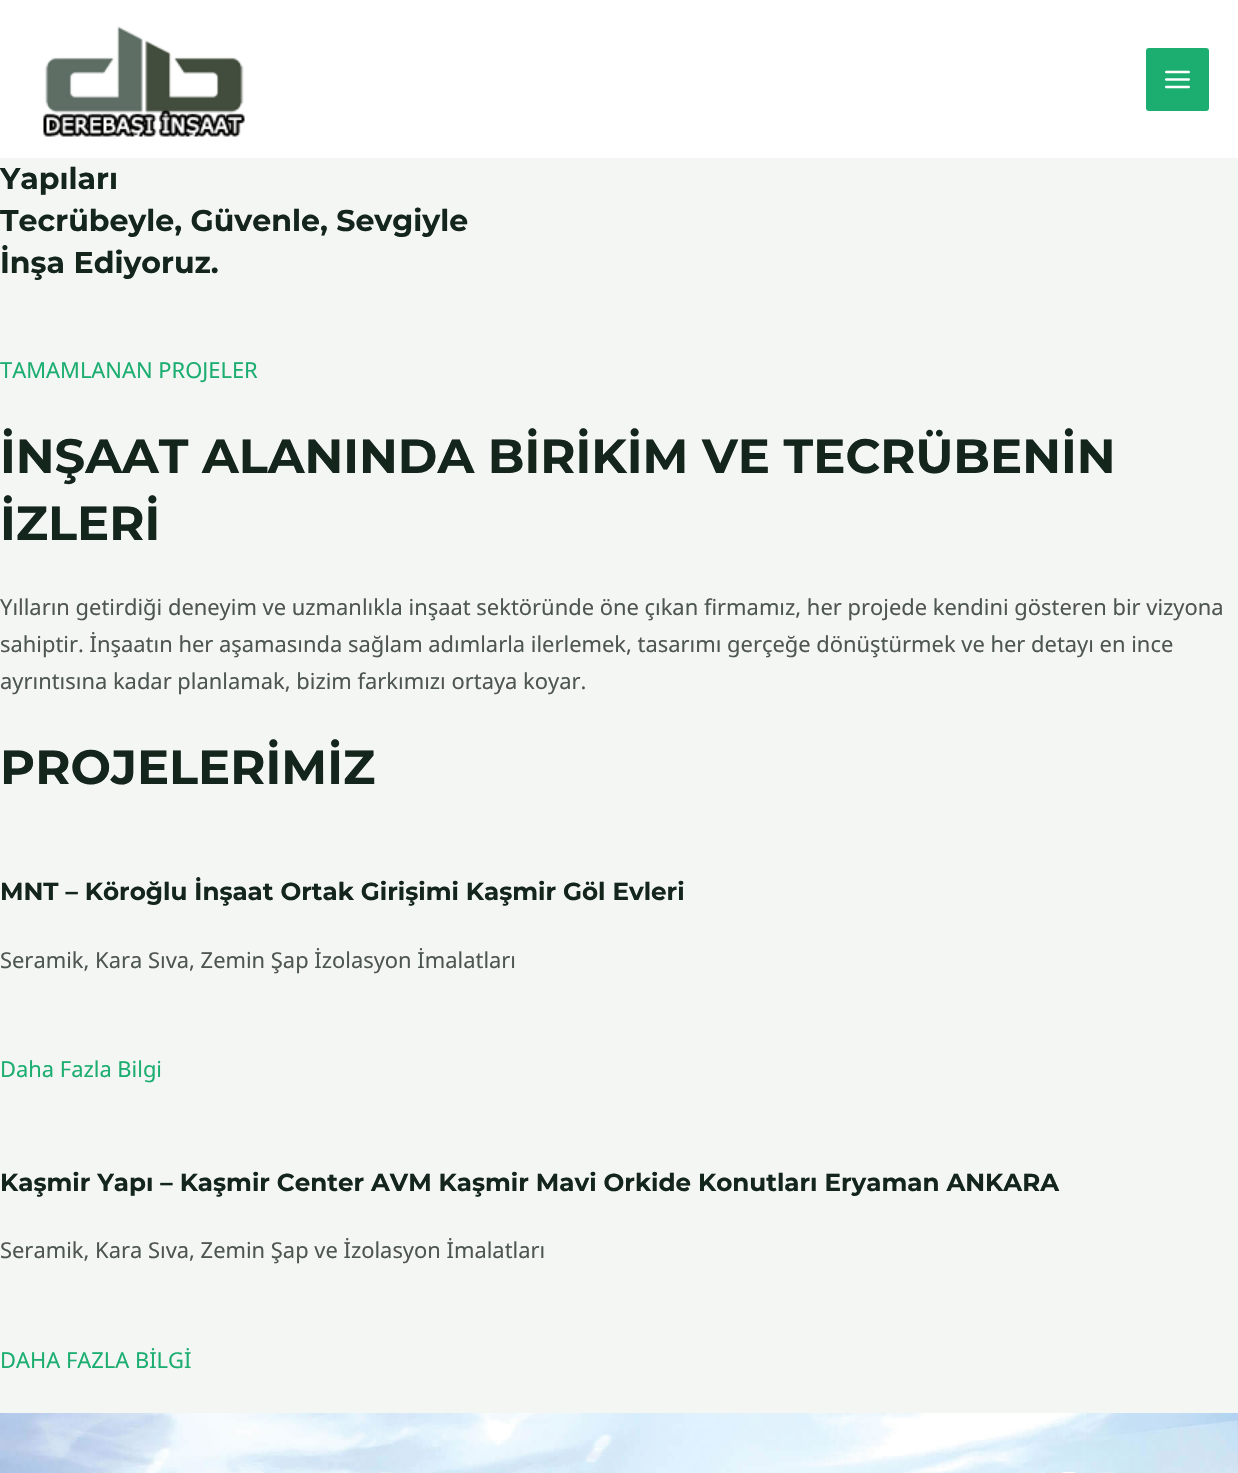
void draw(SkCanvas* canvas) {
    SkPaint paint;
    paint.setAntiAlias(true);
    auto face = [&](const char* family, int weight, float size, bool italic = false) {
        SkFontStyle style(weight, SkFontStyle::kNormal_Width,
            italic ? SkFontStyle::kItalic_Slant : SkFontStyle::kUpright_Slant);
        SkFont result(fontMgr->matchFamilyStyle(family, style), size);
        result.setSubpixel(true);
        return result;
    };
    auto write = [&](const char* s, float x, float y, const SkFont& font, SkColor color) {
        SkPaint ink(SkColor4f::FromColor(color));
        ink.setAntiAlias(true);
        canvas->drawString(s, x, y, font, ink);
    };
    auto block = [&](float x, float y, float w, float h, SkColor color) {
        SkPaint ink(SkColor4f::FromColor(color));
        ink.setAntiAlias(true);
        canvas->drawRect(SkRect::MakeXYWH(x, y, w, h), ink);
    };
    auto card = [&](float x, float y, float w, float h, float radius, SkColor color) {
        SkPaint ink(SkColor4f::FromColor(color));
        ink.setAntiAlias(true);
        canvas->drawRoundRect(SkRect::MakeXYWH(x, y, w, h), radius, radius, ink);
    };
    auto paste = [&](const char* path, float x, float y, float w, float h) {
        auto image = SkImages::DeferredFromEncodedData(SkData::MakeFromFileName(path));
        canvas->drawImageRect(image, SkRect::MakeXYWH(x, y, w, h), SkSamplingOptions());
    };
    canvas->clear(SkColorSetRGB(244, 246, 244));
    block(0, 0, 1238, 158, SK_ColorWHITE);
    paste("pic1.png", 43, 26, 202, 111);
    card(1146, 48, 63, 63, 3, SkColorSetRGB(27, 174, 112));
    paste("pic2.png", 1165, 70, 25, 19);
    auto kFont1 = face("Montserrat", 100, 30);
    write("Yapıları", 0, 189, kFont1, SkColorSetRGB(20, 38, 28));
    write("Tecrübeyle, Güvenle, Sevgiyle", 0, 231, kFont1, SkColorSetRGB(20, 38, 28));
    write("İnşa Ediyoruz.", 0, 273, kFont1, SkColorSetRGB(20, 38, 28));
    auto kFont2 = face("Noto Sans", 400, 21.9f);
    write("TAMAMLANAN PROJELER", 0, 378, kFont2, SkColorSetRGB(27, 174, 112));
    auto kFont3 = face("Montserrat", 100, 48);
    write("İNŞAAT ALANINDA BİRİKİM VE TECRÜBENİN", 0, 473, kFont3, SkColorSetRGB(20, 38, 28));
    write("İZLERİ", 0, 540, kFont3, SkColorSetRGB(20, 38, 28));
    write("Yılların getirdiği deneyim ve uzmanlıkla inşaat sektöründe öne çıkan firmamız, her projede kendini gösteren bir vizyona", 0, 615, kFont2, SkColorSetRGB(78, 86, 82));
    write("sahiptir. İnşaatın her aşamasında sağlam adımlarla ilerlemek, tasarımı gerçeğe dönüştürmek ve her detayı en ince", 0, 652, kFont2, SkColorSetRGB(78, 86, 82));
    write("ayrıntısına kadar planlamak, bizim farkımızı ortaya koyar.", 0, 689, kFont2, SkColorSetRGB(78, 86, 82));
    write("PROJELERİMİZ", 0, 784, kFont3, SkColorSetRGB(20, 38, 28));
    auto kFont4 = face("Montserrat", 100, 24.6f);
    write("MNT – Köroğlu İnşaat Ortak Girişimi Kaşmir Göl Evleri", 0, 900, kFont4, SkColorSetRGB(20, 38, 28));
    write("Seramik, Kara Sıva, Zemin Şap İzolasyon İmalatları", 0, 968, kFont2, SkColorSetRGB(78, 86, 82));
    write("Daha Fazla Bilgi", 0, 1077, kFont2, SkColorSetRGB(27, 174, 112));
    write("Kaşmir Yapı – Kaşmir Center AVM Kaşmir Mavi Orkide Konutları Eryaman ANKARA", 0, 1191, kFont4, SkColorSetRGB(20, 38, 28));
    write("Seramik, Kara Sıva, Zemin Şap ve İzolasyon İmalatları", 0, 1258, kFont2, SkColorSetRGB(78, 86, 82));
    write("DAHA FAZLA BİLGİ", 0, 1368, kFont2, SkColorSetRGB(27, 174, 112));
    paste("pic3.png", 0, 1413, 1238, 60);
}
